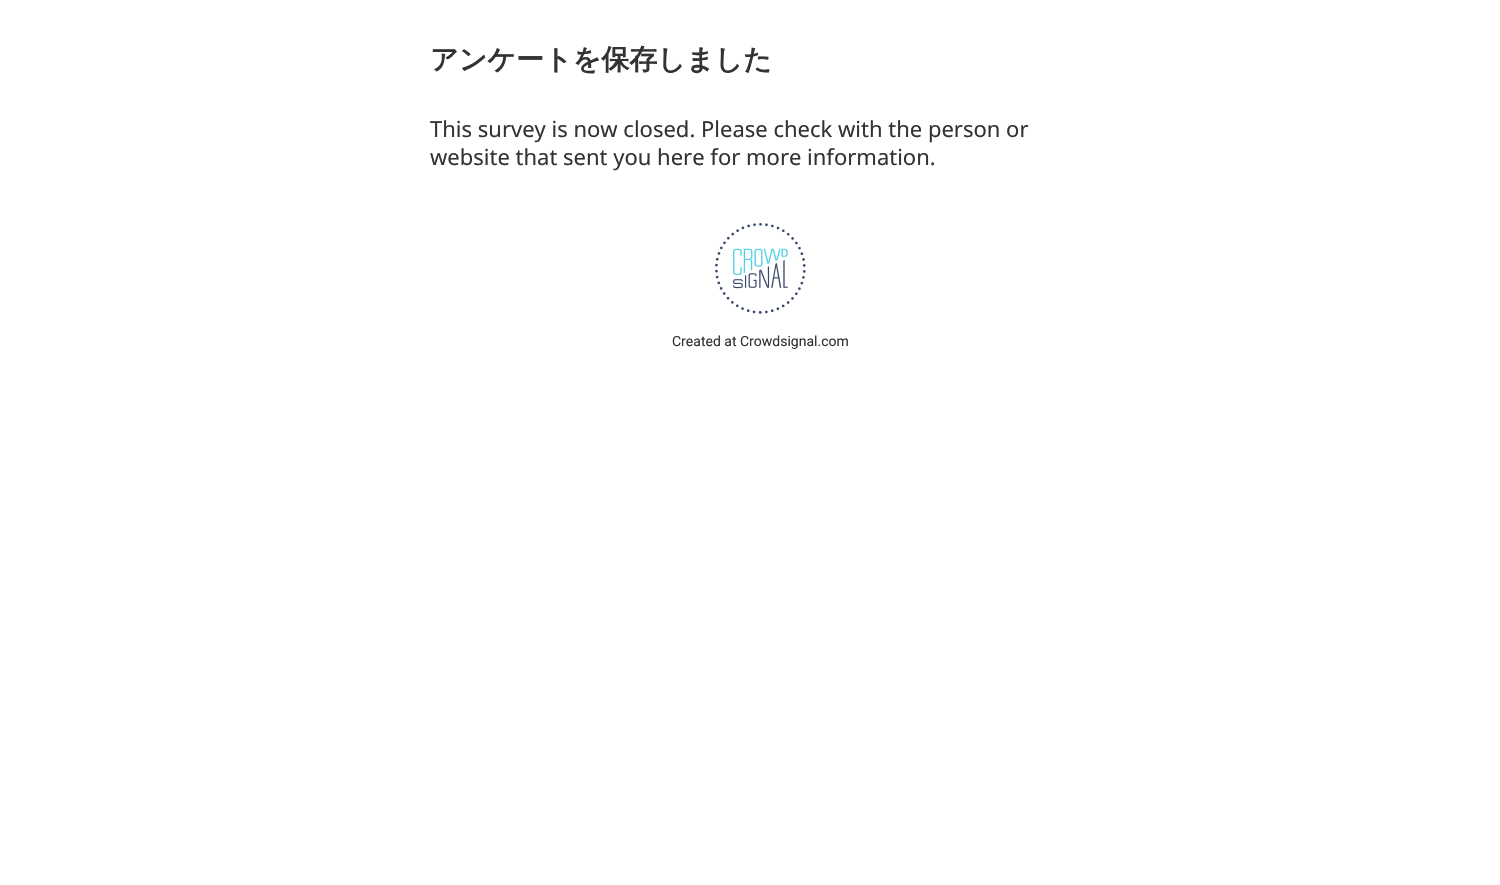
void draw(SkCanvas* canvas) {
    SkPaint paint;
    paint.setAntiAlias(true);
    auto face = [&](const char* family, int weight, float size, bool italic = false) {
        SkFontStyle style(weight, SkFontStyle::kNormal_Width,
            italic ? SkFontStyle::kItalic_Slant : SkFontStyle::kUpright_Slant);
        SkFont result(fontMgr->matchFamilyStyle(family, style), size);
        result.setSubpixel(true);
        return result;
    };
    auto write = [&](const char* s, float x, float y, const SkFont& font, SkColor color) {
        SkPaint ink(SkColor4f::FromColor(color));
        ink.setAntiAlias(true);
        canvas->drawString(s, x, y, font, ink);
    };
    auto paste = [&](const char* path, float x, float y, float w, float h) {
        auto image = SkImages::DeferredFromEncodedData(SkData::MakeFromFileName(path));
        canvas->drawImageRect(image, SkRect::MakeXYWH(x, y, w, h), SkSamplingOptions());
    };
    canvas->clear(SK_ColorWHITE);
    auto kFont1 = face("WenQuanYi Zen Hei", 700, 28);
    write("アンケートを保存しました", 430, 69, kFont1, SkColorSetRGB(51, 51, 51));
    auto kFont2 = face("Noto Sans", 400, 22);
    write("This survey is now closed. Please check with the person or", 430, 137, kFont2, SkColorSetRGB(51, 51, 51));
    write("website that sent you here for more information.", 430, 165, kFont2, SkColorSetRGB(51, 51, 51));
    paste("pic1.png", 715, 223, 91, 91);
    auto kFont3 = face("Roboto", 400, 14);
    write("Created at Crowdsignal.com", 672, 346, kFont3, SkColorSetRGB(51, 51, 51));
}
